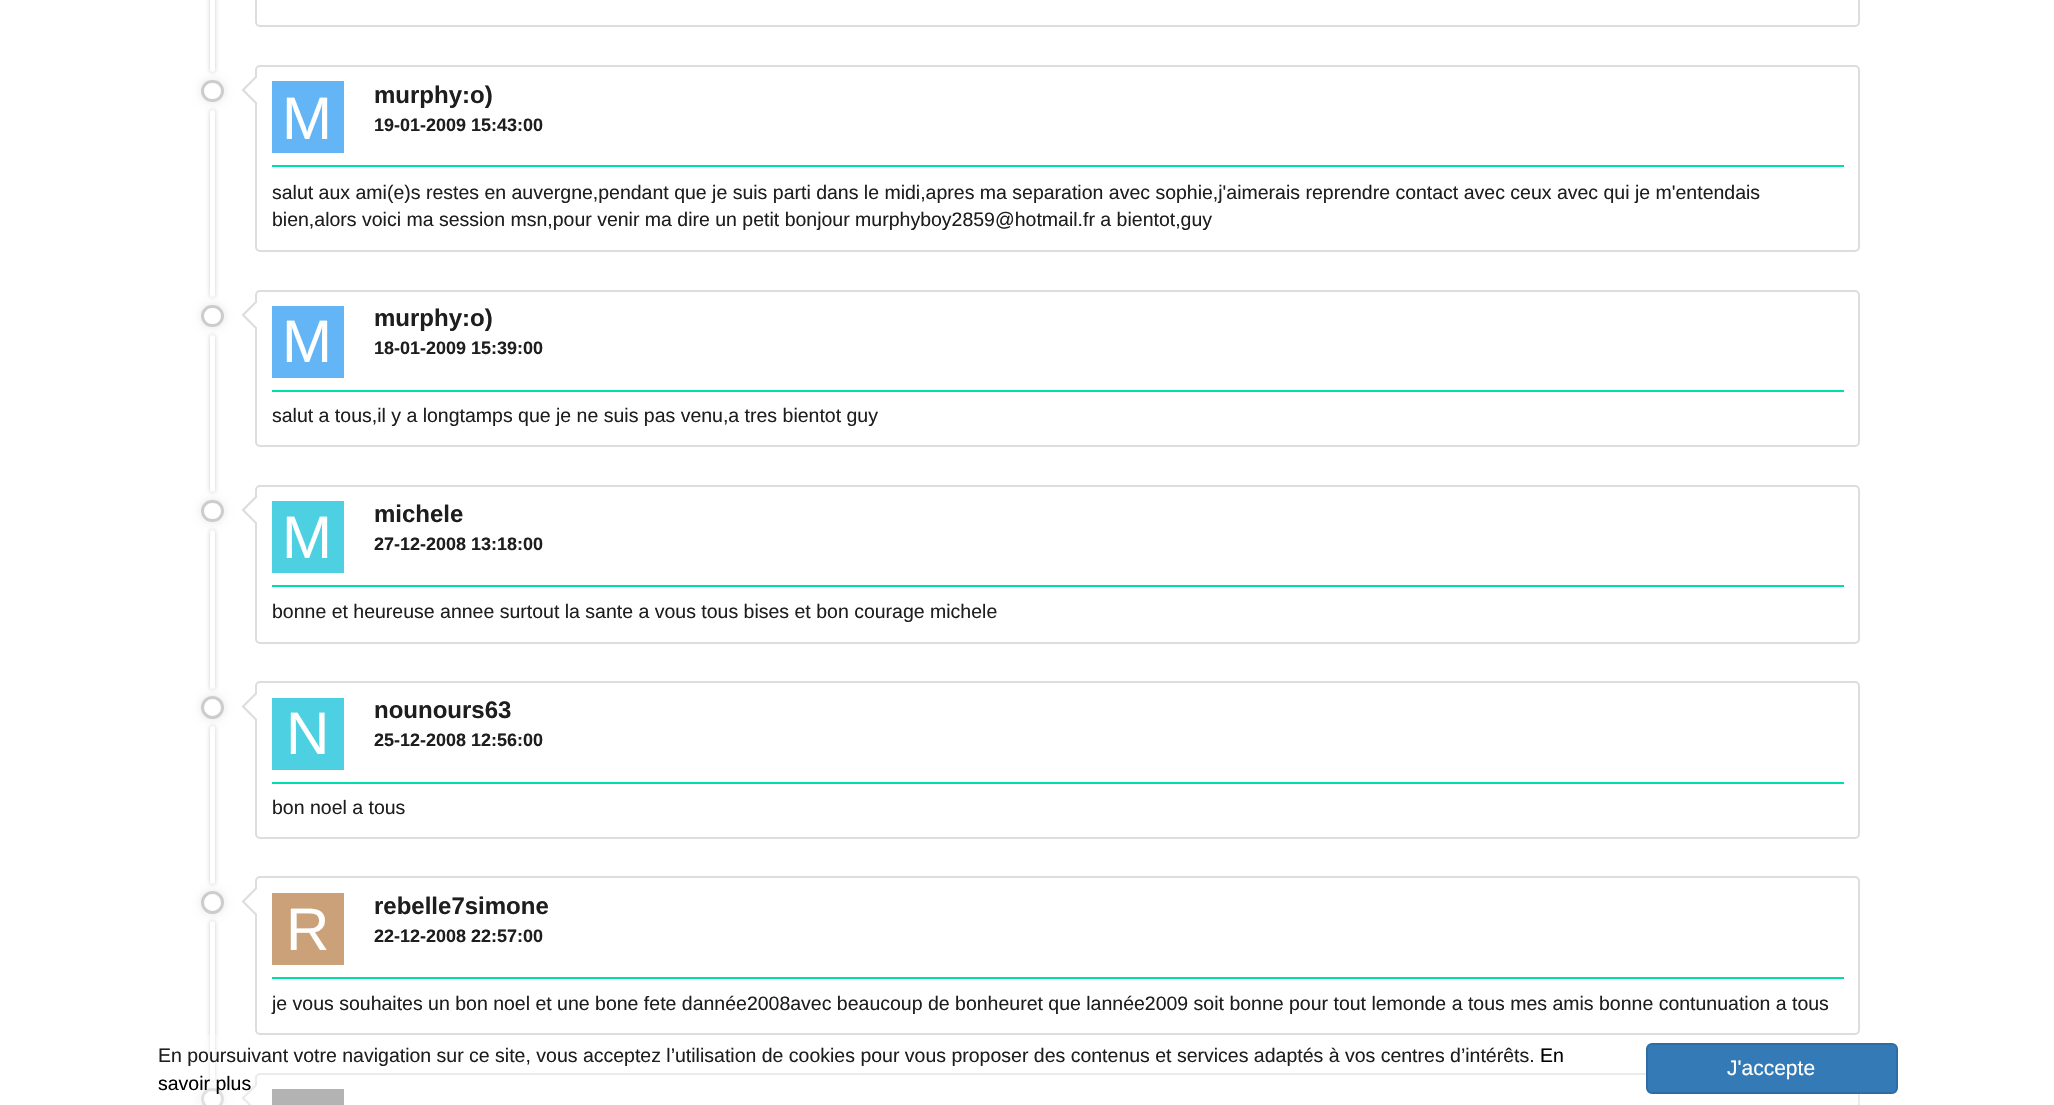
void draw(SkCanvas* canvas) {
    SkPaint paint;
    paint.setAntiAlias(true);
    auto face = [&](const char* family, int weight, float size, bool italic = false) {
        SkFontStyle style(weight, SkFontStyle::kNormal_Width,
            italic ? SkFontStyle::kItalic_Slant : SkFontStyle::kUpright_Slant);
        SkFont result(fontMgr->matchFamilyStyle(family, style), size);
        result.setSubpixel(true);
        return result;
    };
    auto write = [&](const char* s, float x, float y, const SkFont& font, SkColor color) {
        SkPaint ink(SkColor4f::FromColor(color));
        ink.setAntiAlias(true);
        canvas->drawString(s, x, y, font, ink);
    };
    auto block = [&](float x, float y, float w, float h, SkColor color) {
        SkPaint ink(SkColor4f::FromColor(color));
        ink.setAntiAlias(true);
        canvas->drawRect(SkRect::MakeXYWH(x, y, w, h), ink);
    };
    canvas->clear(SK_ColorWHITE);
    canvas->save();
    canvas->clipPath(SkPathBuilder(SkPathFillType::kEvenOdd).moveTo(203, 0).lineTo(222, 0).lineTo(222, 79).lineTo(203, 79).close().moveTo(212.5f, -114).cubicTo(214, -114, 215, -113, 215, -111.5f).lineTo(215, 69.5f).cubicTo(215, 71, 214, 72, 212.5f, 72).cubicTo(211, 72, 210, 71, 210, 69.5f).lineTo(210, -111.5f).cubicTo(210, -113, 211, -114, 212.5f, -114).close().detach(), true);
    paint.setColor(SkColorSetARGB(51, 0, 0, 0));
    paint.setMaskFilter(SkMaskFilter::MakeBlur(kNormal_SkBlurStyle, 2));
    canvas->drawRoundRect(SkRect::MakeXYWH(210, -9, 5, 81), 2.5f, 2.5f, paint);
    paint.setMaskFilter(nullptr);
    canvas->restore();
    paint.setStyle(SkPaint::kStroke_Style);
    paint.setStrokeWidth(2);
    paint.setColor(SkColorSetRGB(221, 221, 221));
    canvas->drawRoundRect(SkRect::MakeXYWH(256, -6, 1603, 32), 4, 4, paint);
    canvas->save();
    canvas->clipPath(SkPathBuilder(SkPathFillType::kEvenOdd).moveTo(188, 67).lineTo(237, 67).lineTo(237, 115).lineTo(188, 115).close().moveTo(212, 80).lineTo(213, 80).cubicTo(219, 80, 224, 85, 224, 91).cubicTo(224, 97, 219, 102, 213, 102).lineTo(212, 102).cubicTo(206, 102, 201, 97, 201, 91).cubicTo(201, 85, 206, 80, 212, 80).close().detach(), true);
    paint.setStyle(SkPaint::kFill_Style);
    paint.setColor(SkColorSetARGB(26, 0, 0, 0));
    paint.setMaskFilter(SkMaskFilter::MakeBlur(kNormal_SkBlurStyle, 4));
    canvas->drawRoundRect(SkRect::MakeXYWH(201, 80, 23, 22), 11, 11, paint);
    paint.setMaskFilter(nullptr);
    canvas->restore();
    paint.setStyle(SkPaint::kStroke_Style);
    paint.setStrokeWidth(3);
    paint.setColor(SkColorSetRGB(204, 204, 204));
    canvas->drawRoundRect(SkRect::MakeXYWH(202.5f, 81.5f, 20, 19), 9.5f, 9.5f, paint);
    paint.setStrokeWidth(2);
    paint.setColor(SkColorSetRGB(221, 221, 221));
    canvas->drawRoundRect(SkRect::MakeXYWH(256, 66, 1603, 185), 4, 4, paint);
    paint.setStyle(SkPaint::kFill_Style);
    canvas->drawPath(SkPathBuilder().moveTo(256.5f, 75).lineTo(256.5f, 105).lineTo(241.5f, 90).close().detach(), paint);
    paint.setColor(SK_ColorWHITE);
    canvas->drawPath(SkPathBuilder().moveTo(259.5f, 75).lineTo(259.5f, 105).lineTo(244.5f, 90).close().detach(), paint);
    block(272, 165, 1572, 2, SkColorSetRGB(0, 222, 171));
    block(272, 81, 72, 72, SkColorSetRGB(100, 181, 246));
    auto kFont1 = face("Liberation Sans", 400, 60);
    write("M", 282, 139, kFont1, SK_ColorWHITE);
    auto kFont2 = face("Liberation Sans", 700, 24);
    write("murphy:o)", 374, 103, kFont2, SkColorSetRGB(30, 30, 30));
    auto kFont3 = face("Liberation Sans", 700, 18);
    write("19-01-2009 15:43:00", 374, 131, kFont3, SkColorSetRGB(30, 30, 30));
    auto kFont4 = face("Liberation Sans", 400, 19.5f);
    write("salut aux ami(e)s restes en auvergne,pendant que je suis parti dans le midi,apres ma separation avec sophie,j'aimerais reprendre contact avec ceux avec qui je m'entendais", 272, 199, kFont4, SkColorSetRGB(30, 30, 30));
    write("bien,alors voici ma session msn,pour venir ma dire un petit bonjour murphyboy2859@hotmail.fr a bientot,guy", 272, 226, kFont4, SkColorSetRGB(30, 30, 30));
    canvas->save();
    canvas->clipPath(SkPathBuilder(SkPathFillType::kEvenOdd).moveTo(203, 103).lineTo(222, 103).lineTo(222, 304).lineTo(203, 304).close().moveTo(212.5f, 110).cubicTo(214, 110, 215, 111, 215, 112.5f).lineTo(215, 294.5f).cubicTo(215, 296, 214, 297, 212.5f, 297).cubicTo(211, 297, 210, 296, 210, 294.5f).lineTo(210, 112.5f).cubicTo(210, 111, 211, 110, 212.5f, 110).close().detach(), true);
    paint.setColor(SkColorSetARGB(51, 0, 0, 0));
    paint.setMaskFilter(SkMaskFilter::MakeBlur(kNormal_SkBlurStyle, 2));
    canvas->drawRoundRect(SkRect::MakeXYWH(210, 110, 5, 187), 2.5f, 2.5f, paint);
    paint.setMaskFilter(nullptr);
    canvas->restore();
    canvas->save();
    canvas->clipPath(SkPathBuilder(SkPathFillType::kEvenOdd).moveTo(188, 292).lineTo(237, 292).lineTo(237, 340).lineTo(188, 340).close().moveTo(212, 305).lineTo(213, 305).cubicTo(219, 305, 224, 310, 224, 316).cubicTo(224, 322, 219, 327, 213, 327).lineTo(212, 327).cubicTo(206, 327, 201, 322, 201, 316).cubicTo(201, 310, 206, 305, 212, 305).close().detach(), true);
    paint.setColor(SkColorSetARGB(26, 0, 0, 0));
    paint.setMaskFilter(SkMaskFilter::MakeBlur(kNormal_SkBlurStyle, 4));
    canvas->drawRoundRect(SkRect::MakeXYWH(201, 305, 23, 22), 11, 11, paint);
    paint.setMaskFilter(nullptr);
    canvas->restore();
    paint.setStyle(SkPaint::kStroke_Style);
    paint.setStrokeWidth(3);
    paint.setColor(SkColorSetRGB(204, 204, 204));
    canvas->drawRoundRect(SkRect::MakeXYWH(202.5f, 306.5f, 20, 19), 9.5f, 9.5f, paint);
    paint.setStrokeWidth(2);
    paint.setColor(SkColorSetRGB(221, 221, 221));
    canvas->drawRoundRect(SkRect::MakeXYWH(256, 291, 1603, 155), 4, 4, paint);
    paint.setStyle(SkPaint::kFill_Style);
    canvas->drawPath(SkPathBuilder().moveTo(256.5f, 300).lineTo(256.5f, 330).lineTo(241.5f, 315).close().detach(), paint);
    paint.setColor(SK_ColorWHITE);
    canvas->drawPath(SkPathBuilder().moveTo(259.5f, 300).lineTo(259.5f, 330).lineTo(244.5f, 315).close().detach(), paint);
    block(272, 390, 1572, 2, SkColorSetRGB(0, 222, 171));
    block(272, 306, 72, 72, SkColorSetRGB(100, 181, 246));
    write("M", 282, 362, kFont1, SK_ColorWHITE);
    write("murphy:o)", 374, 326, kFont2, SkColorSetRGB(30, 30, 30));
    write("18-01-2009 15:39:00", 374, 354, kFont3, SkColorSetRGB(30, 30, 30));
    write("salut a tous,il y a longtamps que je ne suis pas venu,a tres bientot guy", 272, 422, kFont4, SkColorSetRGB(30, 30, 30));
    canvas->save();
    canvas->clipPath(SkPathBuilder(SkPathFillType::kEvenOdd).moveTo(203, 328).lineTo(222, 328).lineTo(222, 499).lineTo(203, 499).close().moveTo(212.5f, 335).cubicTo(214, 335, 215, 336, 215, 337.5f).lineTo(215, 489.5f).cubicTo(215, 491, 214, 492, 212.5f, 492).cubicTo(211, 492, 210, 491, 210, 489.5f).lineTo(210, 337.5f).cubicTo(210, 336, 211, 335, 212.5f, 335).close().detach(), true);
    paint.setColor(SkColorSetARGB(51, 0, 0, 0));
    paint.setMaskFilter(SkMaskFilter::MakeBlur(kNormal_SkBlurStyle, 2));
    canvas->drawRoundRect(SkRect::MakeXYWH(210, 335, 5, 157), 2.5f, 2.5f, paint);
    paint.setMaskFilter(nullptr);
    canvas->restore();
    canvas->save();
    canvas->clipPath(SkPathBuilder(SkPathFillType::kEvenOdd).moveTo(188, 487).lineTo(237, 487).lineTo(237, 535).lineTo(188, 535).close().moveTo(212, 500).lineTo(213, 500).cubicTo(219, 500, 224, 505, 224, 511).cubicTo(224, 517, 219, 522, 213, 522).lineTo(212, 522).cubicTo(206, 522, 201, 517, 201, 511).cubicTo(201, 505, 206, 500, 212, 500).close().detach(), true);
    paint.setColor(SkColorSetARGB(26, 0, 0, 0));
    paint.setMaskFilter(SkMaskFilter::MakeBlur(kNormal_SkBlurStyle, 4));
    canvas->drawRoundRect(SkRect::MakeXYWH(201, 500, 23, 22), 11, 11, paint);
    paint.setMaskFilter(nullptr);
    canvas->restore();
    paint.setStyle(SkPaint::kStroke_Style);
    paint.setStrokeWidth(3);
    paint.setColor(SkColorSetRGB(204, 204, 204));
    canvas->drawRoundRect(SkRect::MakeXYWH(202.5f, 501.5f, 20, 19), 9.5f, 9.5f, paint);
    paint.setStrokeWidth(2);
    paint.setColor(SkColorSetRGB(221, 221, 221));
    canvas->drawRoundRect(SkRect::MakeXYWH(256, 486, 1603, 157), 4, 4, paint);
    paint.setStyle(SkPaint::kFill_Style);
    canvas->drawPath(SkPathBuilder().moveTo(256.5f, 495).lineTo(256.5f, 525).lineTo(241.5f, 510).close().detach(), paint);
    paint.setColor(SK_ColorWHITE);
    canvas->drawPath(SkPathBuilder().moveTo(259.5f, 495).lineTo(259.5f, 525).lineTo(244.5f, 510).close().detach(), paint);
    block(272, 585, 1572, 2, SkColorSetRGB(0, 222, 171));
    block(272, 501, 72, 72, SkColorSetRGB(77, 208, 225));
    write("M", 282, 558, kFont1, SK_ColorWHITE);
    write("michele", 374, 522, kFont2, SkColorSetRGB(30, 30, 30));
    write("27-12-2008 13:18:00", 374, 550, kFont3, SkColorSetRGB(30, 30, 30));
    write("bonne et heureuse annee surtout la sante a vous tous bises et bon courage michele", 272, 618, kFont4, SkColorSetRGB(30, 30, 30));
    canvas->save();
    canvas->clipPath(SkPathBuilder(SkPathFillType::kEvenOdd).moveTo(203, 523).lineTo(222, 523).lineTo(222, 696).lineTo(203, 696).close().moveTo(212.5f, 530).cubicTo(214, 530, 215, 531, 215, 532.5f).lineTo(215, 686.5f).cubicTo(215, 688, 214, 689, 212.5f, 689).cubicTo(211, 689, 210, 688, 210, 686.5f).lineTo(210, 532.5f).cubicTo(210, 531, 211, 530, 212.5f, 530).close().detach(), true);
    paint.setColor(SkColorSetARGB(51, 0, 0, 0));
    paint.setMaskFilter(SkMaskFilter::MakeBlur(kNormal_SkBlurStyle, 2));
    canvas->drawRoundRect(SkRect::MakeXYWH(210, 530, 5, 159), 2.5f, 2.5f, paint);
    paint.setMaskFilter(nullptr);
    canvas->restore();
    canvas->save();
    canvas->clipPath(SkPathBuilder(SkPathFillType::kEvenOdd).moveTo(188, 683).lineTo(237, 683).lineTo(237, 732).lineTo(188, 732).close().moveTo(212.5f, 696).cubicTo(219, 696, 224, 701, 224, 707.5f).cubicTo(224, 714, 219, 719, 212.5f, 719).cubicTo(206, 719, 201, 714, 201, 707.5f).cubicTo(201, 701, 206, 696, 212.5f, 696).close().detach(), true);
    paint.setColor(SkColorSetARGB(26, 0, 0, 0));
    paint.setMaskFilter(SkMaskFilter::MakeBlur(kNormal_SkBlurStyle, 4));
    canvas->drawRoundRect(SkRect::MakeXYWH(201, 696, 23, 23), 11.5f, 11.5f, paint);
    paint.setMaskFilter(nullptr);
    canvas->restore();
    paint.setStyle(SkPaint::kStroke_Style);
    paint.setStrokeWidth(3);
    paint.setColor(SkColorSetRGB(204, 204, 204));
    canvas->drawCircle(212.5f, 707.5f, 10, paint);
    paint.setStrokeWidth(2);
    paint.setColor(SkColorSetRGB(221, 221, 221));
    canvas->drawRoundRect(SkRect::MakeXYWH(256, 682, 1603, 156), 4, 4, paint);
    paint.setStyle(SkPaint::kFill_Style);
    canvas->drawPath(SkPathBuilder().moveTo(256.5f, 691.5f).lineTo(256.5f, 721.5f).lineTo(241.5f, 706.5f).close().detach(), paint);
    paint.setColor(SK_ColorWHITE);
    canvas->drawPath(SkPathBuilder().moveTo(259.5f, 691.5f).lineTo(259.5f, 721.5f).lineTo(244.5f, 706.5f).close().detach(), paint);
    block(272, 782, 1572, 2, SkColorSetRGB(0, 222, 171));
    block(272, 698, 72, 72, SkColorSetRGB(77, 208, 225));
    write("N", 286, 754, kFont1, SK_ColorWHITE);
    write("nounours63", 374, 718, kFont2, SkColorSetRGB(30, 30, 30));
    write("25-12-2008 12:56:00", 374, 746, kFont3, SkColorSetRGB(30, 30, 30));
    write("bon noel a tous", 272, 814, kFont4, SkColorSetRGB(30, 30, 30));
    canvas->save();
    canvas->clipPath(SkPathBuilder(SkPathFillType::kEvenOdd).moveTo(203, 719).lineTo(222, 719).lineTo(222, 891).lineTo(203, 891).close().moveTo(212.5f, 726).cubicTo(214, 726, 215, 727, 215, 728.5f).lineTo(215, 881.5f).cubicTo(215, 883, 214, 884, 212.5f, 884).cubicTo(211, 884, 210, 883, 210, 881.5f).lineTo(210, 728.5f).cubicTo(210, 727, 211, 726, 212.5f, 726).close().detach(), true);
    paint.setColor(SkColorSetARGB(51, 0, 0, 0));
    paint.setMaskFilter(SkMaskFilter::MakeBlur(kNormal_SkBlurStyle, 2));
    canvas->drawRoundRect(SkRect::MakeXYWH(210, 726, 5, 158), 2.5f, 2.5f, paint);
    paint.setMaskFilter(nullptr);
    canvas->restore();
    canvas->save();
    canvas->clipPath(SkPathBuilder(SkPathFillType::kEvenOdd).moveTo(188, 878).lineTo(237, 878).lineTo(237, 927).lineTo(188, 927).close().moveTo(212.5f, 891).cubicTo(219, 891, 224, 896, 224, 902.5f).cubicTo(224, 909, 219, 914, 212.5f, 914).cubicTo(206, 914, 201, 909, 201, 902.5f).cubicTo(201, 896, 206, 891, 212.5f, 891).close().detach(), true);
    paint.setColor(SkColorSetARGB(26, 0, 0, 0));
    paint.setMaskFilter(SkMaskFilter::MakeBlur(kNormal_SkBlurStyle, 4));
    canvas->drawRoundRect(SkRect::MakeXYWH(201, 891, 23, 23), 11.5f, 11.5f, paint);
    paint.setMaskFilter(nullptr);
    canvas->restore();
    paint.setStyle(SkPaint::kStroke_Style);
    paint.setStrokeWidth(3);
    paint.setColor(SkColorSetRGB(204, 204, 204));
    canvas->drawCircle(212.5f, 902.5f, 10, paint);
    paint.setStrokeWidth(2);
    paint.setColor(SkColorSetRGB(221, 221, 221));
    canvas->drawRoundRect(SkRect::MakeXYWH(256, 877, 1603, 157), 4, 4, paint);
    paint.setStyle(SkPaint::kFill_Style);
    canvas->drawPath(SkPathBuilder().moveTo(256.5f, 886.5f).lineTo(256.5f, 916.5f).lineTo(241.5f, 901.5f).close().detach(), paint);
    paint.setColor(SK_ColorWHITE);
    canvas->drawPath(SkPathBuilder().moveTo(259.5f, 886.5f).lineTo(259.5f, 916.5f).lineTo(244.5f, 901.5f).close().detach(), paint);
    block(272, 977, 1572, 2, SkColorSetRGB(0, 222, 171));
    block(272, 893, 72, 72, SkColorSetRGB(203, 161, 121));
    write("R", 286, 950, kFont1, SK_ColorWHITE);
    write("rebelle7simone", 374, 914, kFont2, SkColorSetRGB(30, 30, 30));
    write("22-12-2008 22:57:00", 374, 942, kFont3, SkColorSetRGB(30, 30, 30));
    write("je vous souhaites un bon noel et une bone fete dannée2008avec beaucoup de bonheuret que lannée2009 soit bonne pour tout lemonde a tous mes amis bonne contunuation a tous", 272, 1010, kFont4, SkColorSetRGB(30, 30, 30));
    canvas->save();
    canvas->clipPath(SkPathBuilder(SkPathFillType::kEvenOdd).moveTo(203, 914).lineTo(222, 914).lineTo(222, 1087).lineTo(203, 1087).close().moveTo(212.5f, 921).cubicTo(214, 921, 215, 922, 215, 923.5f).lineTo(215, 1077.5f).cubicTo(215, 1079, 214, 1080, 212.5f, 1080).cubicTo(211, 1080, 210, 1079, 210, 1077.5f).lineTo(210, 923.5f).cubicTo(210, 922, 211, 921, 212.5f, 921).close().detach(), true);
    paint.setColor(SkColorSetARGB(51, 0, 0, 0));
    paint.setMaskFilter(SkMaskFilter::MakeBlur(kNormal_SkBlurStyle, 2));
    canvas->drawRoundRect(SkRect::MakeXYWH(210, 921, 5, 159), 2.5f, 2.5f, paint);
    paint.setMaskFilter(nullptr);
    canvas->restore();
    canvas->save();
    canvas->clipPath(SkPathBuilder(SkPathFillType::kEvenOdd).moveTo(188, 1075).lineTo(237, 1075).lineTo(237, 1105).lineTo(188, 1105).close().moveTo(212, 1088).lineTo(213, 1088).cubicTo(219, 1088, 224, 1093, 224, 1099).cubicTo(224, 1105, 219, 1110, 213, 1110).lineTo(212, 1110).cubicTo(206, 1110, 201, 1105, 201, 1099).cubicTo(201, 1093, 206, 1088, 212, 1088).close().detach(), true);
    paint.setColor(SkColorSetARGB(26, 0, 0, 0));
    paint.setMaskFilter(SkMaskFilter::MakeBlur(kNormal_SkBlurStyle, 4));
    canvas->drawRoundRect(SkRect::MakeXYWH(201, 1088, 23, 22), 11, 11, paint);
    paint.setMaskFilter(nullptr);
    canvas->restore();
    paint.setStyle(SkPaint::kStroke_Style);
    paint.setStrokeWidth(3);
    paint.setColor(SkColorSetRGB(204, 204, 204));
    canvas->drawRoundRect(SkRect::MakeXYWH(202.5f, 1089.5f, 20, 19), 9.5f, 9.5f, paint);
    paint.setStrokeWidth(2);
    paint.setColor(SkColorSetRGB(221, 221, 221));
    canvas->drawRoundRect(SkRect::MakeXYWH(256, 1074, 1603, 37), 4, 4, paint);
    paint.setStyle(SkPaint::kFill_Style);
    canvas->drawPath(SkPathBuilder().moveTo(256.5f, 1083).lineTo(256.5f, 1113).lineTo(241.5f, 1098).close().detach(), paint);
    paint.setColor(SK_ColorWHITE);
    canvas->drawPath(SkPathBuilder().moveTo(259.5f, 1083).lineTo(259.5f, 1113).lineTo(244.5f, 1098).close().detach(), paint);
    block(272, 1089, 72, 16, SkColorSetRGB(128, 128, 128));
    block(199, 1035, 1661, 70, SkColorSetARGB(102, 255, 255, 255));
    write("En poursuivant votre navigation sur ce site, vous acceptez l’utilisation de cookies pour vous proposer des contenus et services adaptés à vos centres d’intérêts.", 158, 1062, kFont4, SkColorSetRGB(30, 30, 30));
    write("En", 1540, 1062, kFont4, SK_ColorBLACK);
    write("savoir plus", 158, 1090, kFont4, SK_ColorBLACK);
    paint.setColor(SkColorSetRGB(51, 122, 183));
    canvas->drawRoundRect(SkRect::MakeXYWH(1647, 1044, 250, 49), 5, 5, paint);
    paint.setStyle(SkPaint::kStroke_Style);
    paint.setColor(SkColorSetRGB(46, 109, 164));
    canvas->drawRoundRect(SkRect::MakeXYWH(1647, 1044, 250, 49), 5, 5, paint);
    auto kFont5 = face("Liberation Sans", 400, 21);
    write("J'accepte", 1727, 1075, kFont5, SK_ColorWHITE);
}
